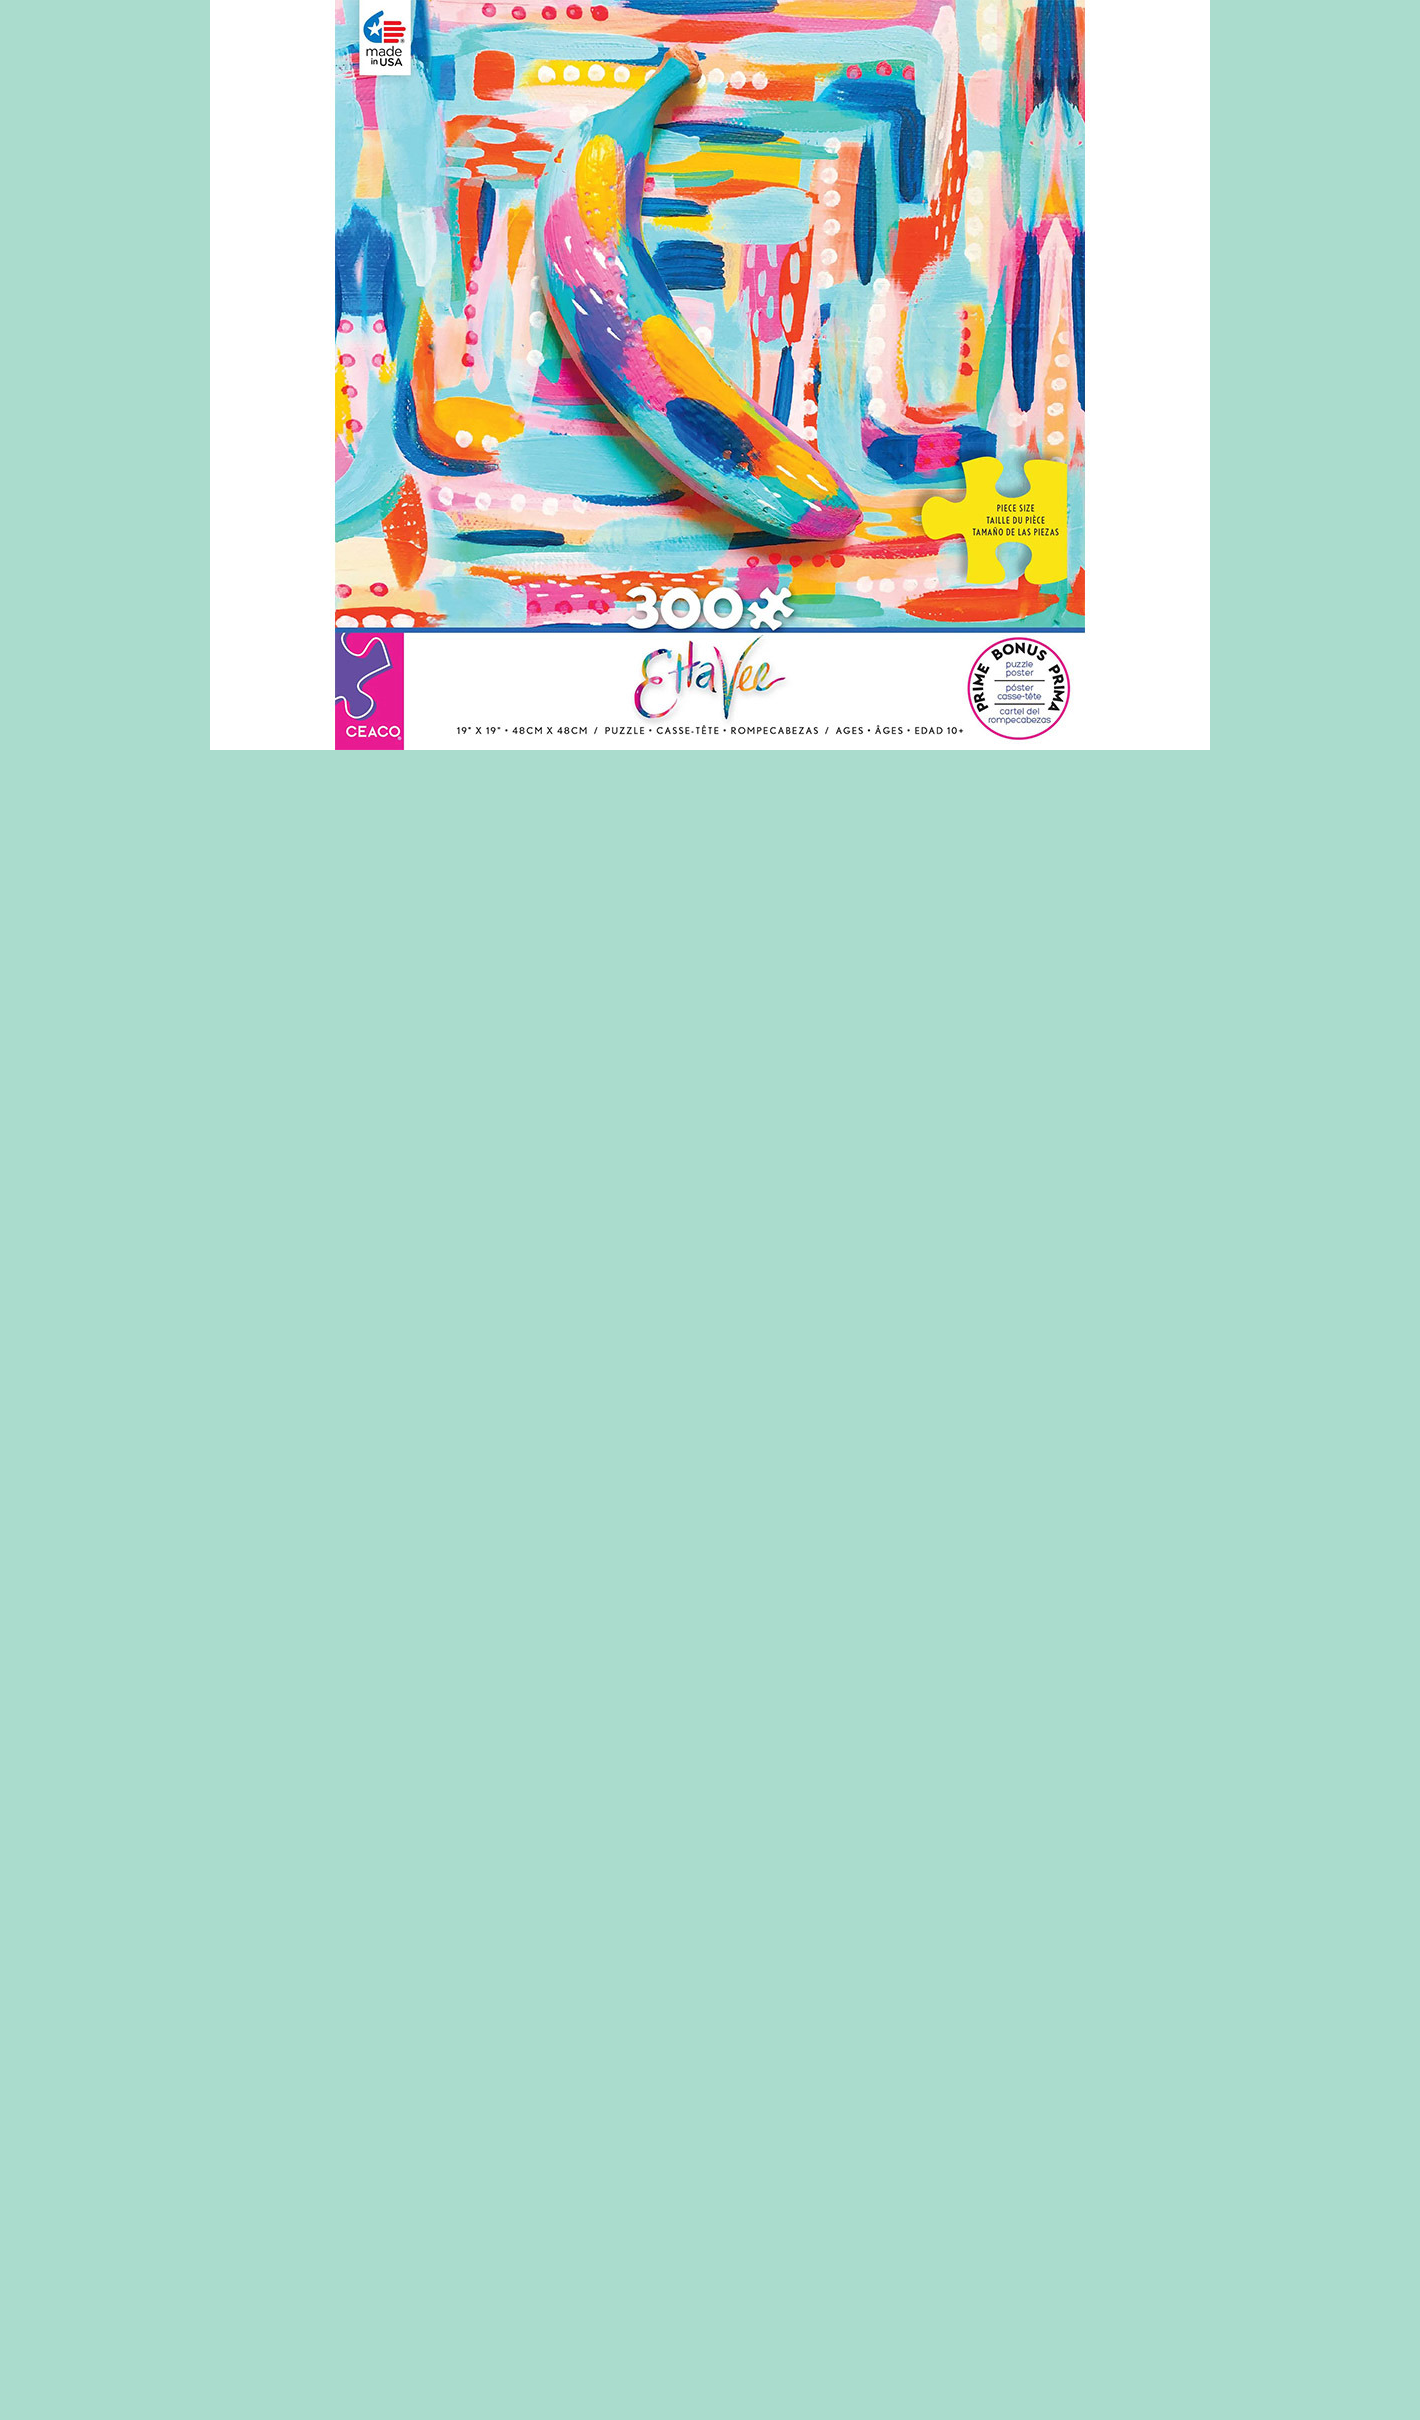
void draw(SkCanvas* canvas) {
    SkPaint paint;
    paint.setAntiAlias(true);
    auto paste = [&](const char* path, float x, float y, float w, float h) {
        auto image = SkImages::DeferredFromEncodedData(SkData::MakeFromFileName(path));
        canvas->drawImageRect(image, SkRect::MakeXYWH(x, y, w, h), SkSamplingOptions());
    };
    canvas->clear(SkColorSetRGB(170, 220, 205));
    paste("pic1.png", 210, 0, 1000, 750);
}
